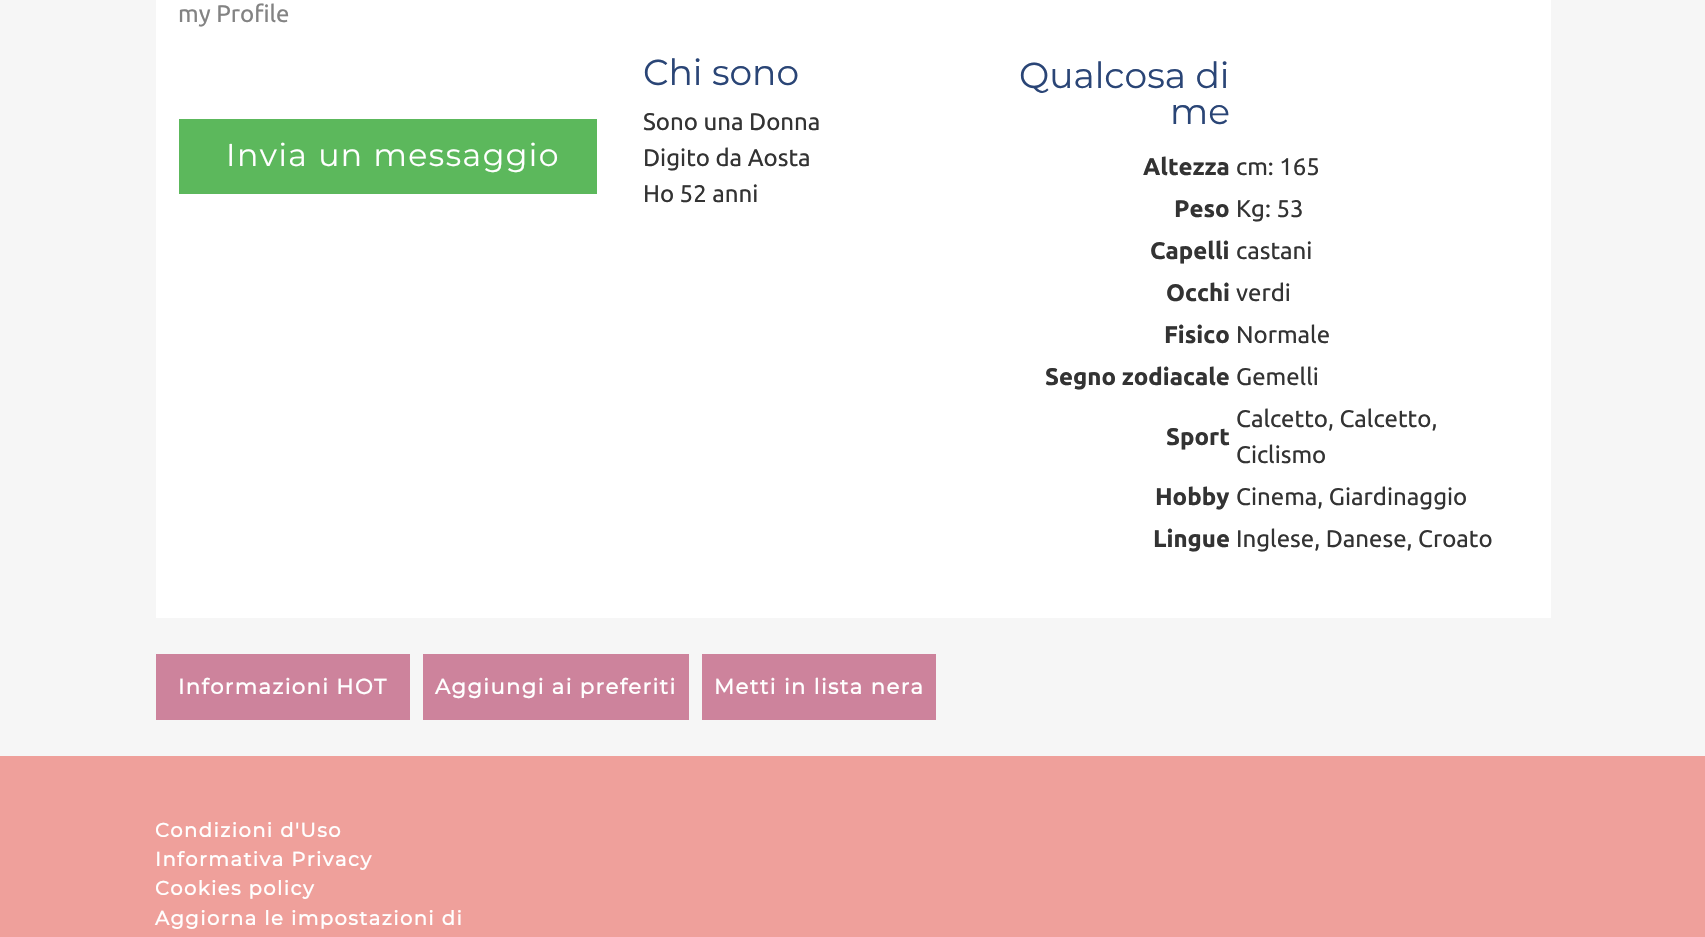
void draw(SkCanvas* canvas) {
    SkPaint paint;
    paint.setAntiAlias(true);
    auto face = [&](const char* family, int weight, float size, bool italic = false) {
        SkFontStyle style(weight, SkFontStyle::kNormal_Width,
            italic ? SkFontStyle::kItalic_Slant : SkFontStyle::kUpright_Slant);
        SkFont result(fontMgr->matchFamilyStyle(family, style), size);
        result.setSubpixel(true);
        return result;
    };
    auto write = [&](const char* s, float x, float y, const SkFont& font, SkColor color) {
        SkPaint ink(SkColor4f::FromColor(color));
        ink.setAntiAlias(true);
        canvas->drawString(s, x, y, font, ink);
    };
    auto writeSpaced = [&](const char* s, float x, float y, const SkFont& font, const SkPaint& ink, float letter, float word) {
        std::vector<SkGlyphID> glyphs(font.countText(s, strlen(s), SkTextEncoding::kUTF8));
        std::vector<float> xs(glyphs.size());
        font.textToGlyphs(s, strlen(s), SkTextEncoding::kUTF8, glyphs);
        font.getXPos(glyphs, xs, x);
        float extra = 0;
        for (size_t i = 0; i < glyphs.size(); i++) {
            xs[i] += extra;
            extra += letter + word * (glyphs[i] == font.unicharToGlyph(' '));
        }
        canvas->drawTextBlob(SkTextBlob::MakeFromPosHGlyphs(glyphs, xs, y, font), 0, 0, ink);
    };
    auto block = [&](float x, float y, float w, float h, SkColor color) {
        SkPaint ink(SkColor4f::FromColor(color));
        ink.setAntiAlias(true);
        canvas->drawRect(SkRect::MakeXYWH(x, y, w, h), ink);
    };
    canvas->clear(SkColorSetRGB(246, 246, 246));
    block(156, 0, 1395, 618, SK_ColorWHITE);
    auto kFont1 = face("Ubuntu", 400, 24);
    write("my Profile", 178, 22, kFont1, SkColorSetRGB(131, 131, 131));
    block(179, 119, 418, 75, SkColorSetRGB(92, 184, 92));
    auto kFont2 = face("Montserrat", 100, 31.5f);
    paint.setColor(SK_ColorWHITE);
    writeSpaced("Invia un messaggio", 226, 166, kFont2, paint, 1.5f, 0);
    auto kFont3 = face("Montserrat", 100, 36);
    write("Chi sono", 643, 85, kFont3, SkColorSetRGB(42, 69, 118));
    write("Sono una Donna", 643, 130, kFont1, SkColorSetRGB(51, 51, 51));
    write("Digito da Aosta", 643, 166, kFont1, SkColorSetRGB(51, 51, 51));
    write("Ho 52 anni", 643, 202, kFont1, SkColorSetRGB(51, 51, 51));
    write("Qualcosa di", 1019, 88, kFont3, SkColorSetRGB(42, 69, 118));
    write("me", 1170, 124, kFont3, SkColorSetRGB(42, 69, 118));
    auto kFont4 = face("Ubuntu", 700, 24);
    write("Altezza", 1143, 175, kFont4, SkColorSetRGB(51, 51, 51));
    write("cm: 165", 1236, 175, kFont1, SkColorSetRGB(51, 51, 51));
    write("Peso", 1174, 217, kFont4, SkColorSetRGB(51, 51, 51));
    write("Kg: 53", 1236, 217, kFont1, SkColorSetRGB(51, 51, 51));
    write("Capelli", 1150, 259, kFont4, SkColorSetRGB(51, 51, 51));
    write("castani", 1236, 259, kFont1, SkColorSetRGB(51, 51, 51));
    write("Occhi", 1166, 301, kFont4, SkColorSetRGB(51, 51, 51));
    write("verdi", 1236, 301, kFont1, SkColorSetRGB(51, 51, 51));
    write("Fisico", 1164, 343, kFont4, SkColorSetRGB(51, 51, 51));
    write("Normale", 1236, 343, kFont1, SkColorSetRGB(51, 51, 51));
    write("Segno zodiacale", 1045, 385, kFont4, SkColorSetRGB(51, 51, 51));
    write("Gemelli", 1236, 385, kFont1, SkColorSetRGB(51, 51, 51));
    write("Sport", 1166, 445, kFont4, SkColorSetRGB(51, 51, 51));
    write("Calcetto, Calcetto,", 1236, 427, kFont1, SkColorSetRGB(51, 51, 51));
    write("Ciclismo", 1236, 463, kFont1, SkColorSetRGB(51, 51, 51));
    write("Hobby", 1155, 505, kFont4, SkColorSetRGB(51, 51, 51));
    write("Cinema, Giardinaggio", 1236, 505, kFont1, SkColorSetRGB(51, 51, 51));
    write("Lingue", 1153, 547, kFont4, SkColorSetRGB(51, 51, 51));
    write("Inglese, Danese, Croato", 1236, 547, kFont1, SkColorSetRGB(51, 51, 51));
    block(156, 654, 254, 66, SkColorSetRGB(205, 131, 156));
    auto kFont5 = face("Montserrat", 700, 21);
    writeSpaced("Informazioni HOT", 178, 694, kFont5, paint, 1.5f, 0);
    block(423, 654, 266, 66, SkColorSetRGB(205, 131, 156));
    writeSpaced("Aggiungi ai preferiti", 435, 694, kFont5, paint, 1.5f, 0);
    block(702, 654, 234, 66, SkColorSetRGB(205, 131, 156));
    writeSpaced("Metti in lista nera", 714, 694, kFont5, paint, 1.5f, 0);
    block(0, 756, 1705, 181, SkColorSetRGB(239, 160, 155));
    auto kFont6 = face("Montserrat", 700, 19.5f);
    writeSpaced("Condizioni d'Uso", 155, 837, kFont6, paint, 1.5f, 0);
    writeSpaced("Informativa Privacy", 155, 866, kFont6, paint, 1.5f, 0);
    writeSpaced("Cookies policy", 155, 895, kFont6, paint, 1.5f, 0);
    writeSpaced("Aggiorna le impostazioni di", 155, 925, kFont6, paint, 1.5f, 0);
}
